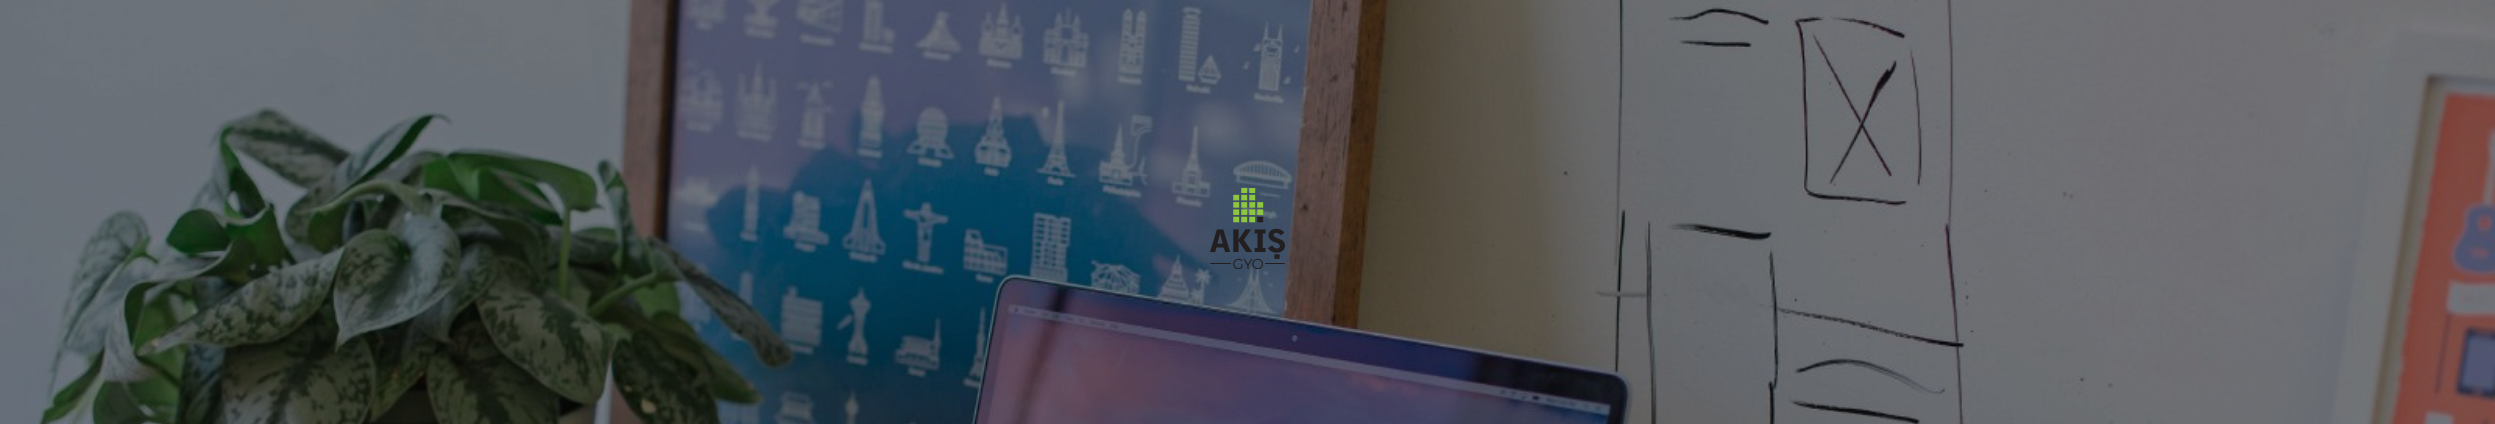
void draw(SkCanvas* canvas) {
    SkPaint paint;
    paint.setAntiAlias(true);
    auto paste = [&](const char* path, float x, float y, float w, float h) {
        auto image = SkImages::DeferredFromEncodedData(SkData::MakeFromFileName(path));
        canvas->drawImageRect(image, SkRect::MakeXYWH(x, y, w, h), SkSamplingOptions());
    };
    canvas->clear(SK_ColorWHITE);
    paste("pic1.png", 0, 0, 2495, 424);
    paste("pic2.png", 1210, 188, 75, 81);
}
